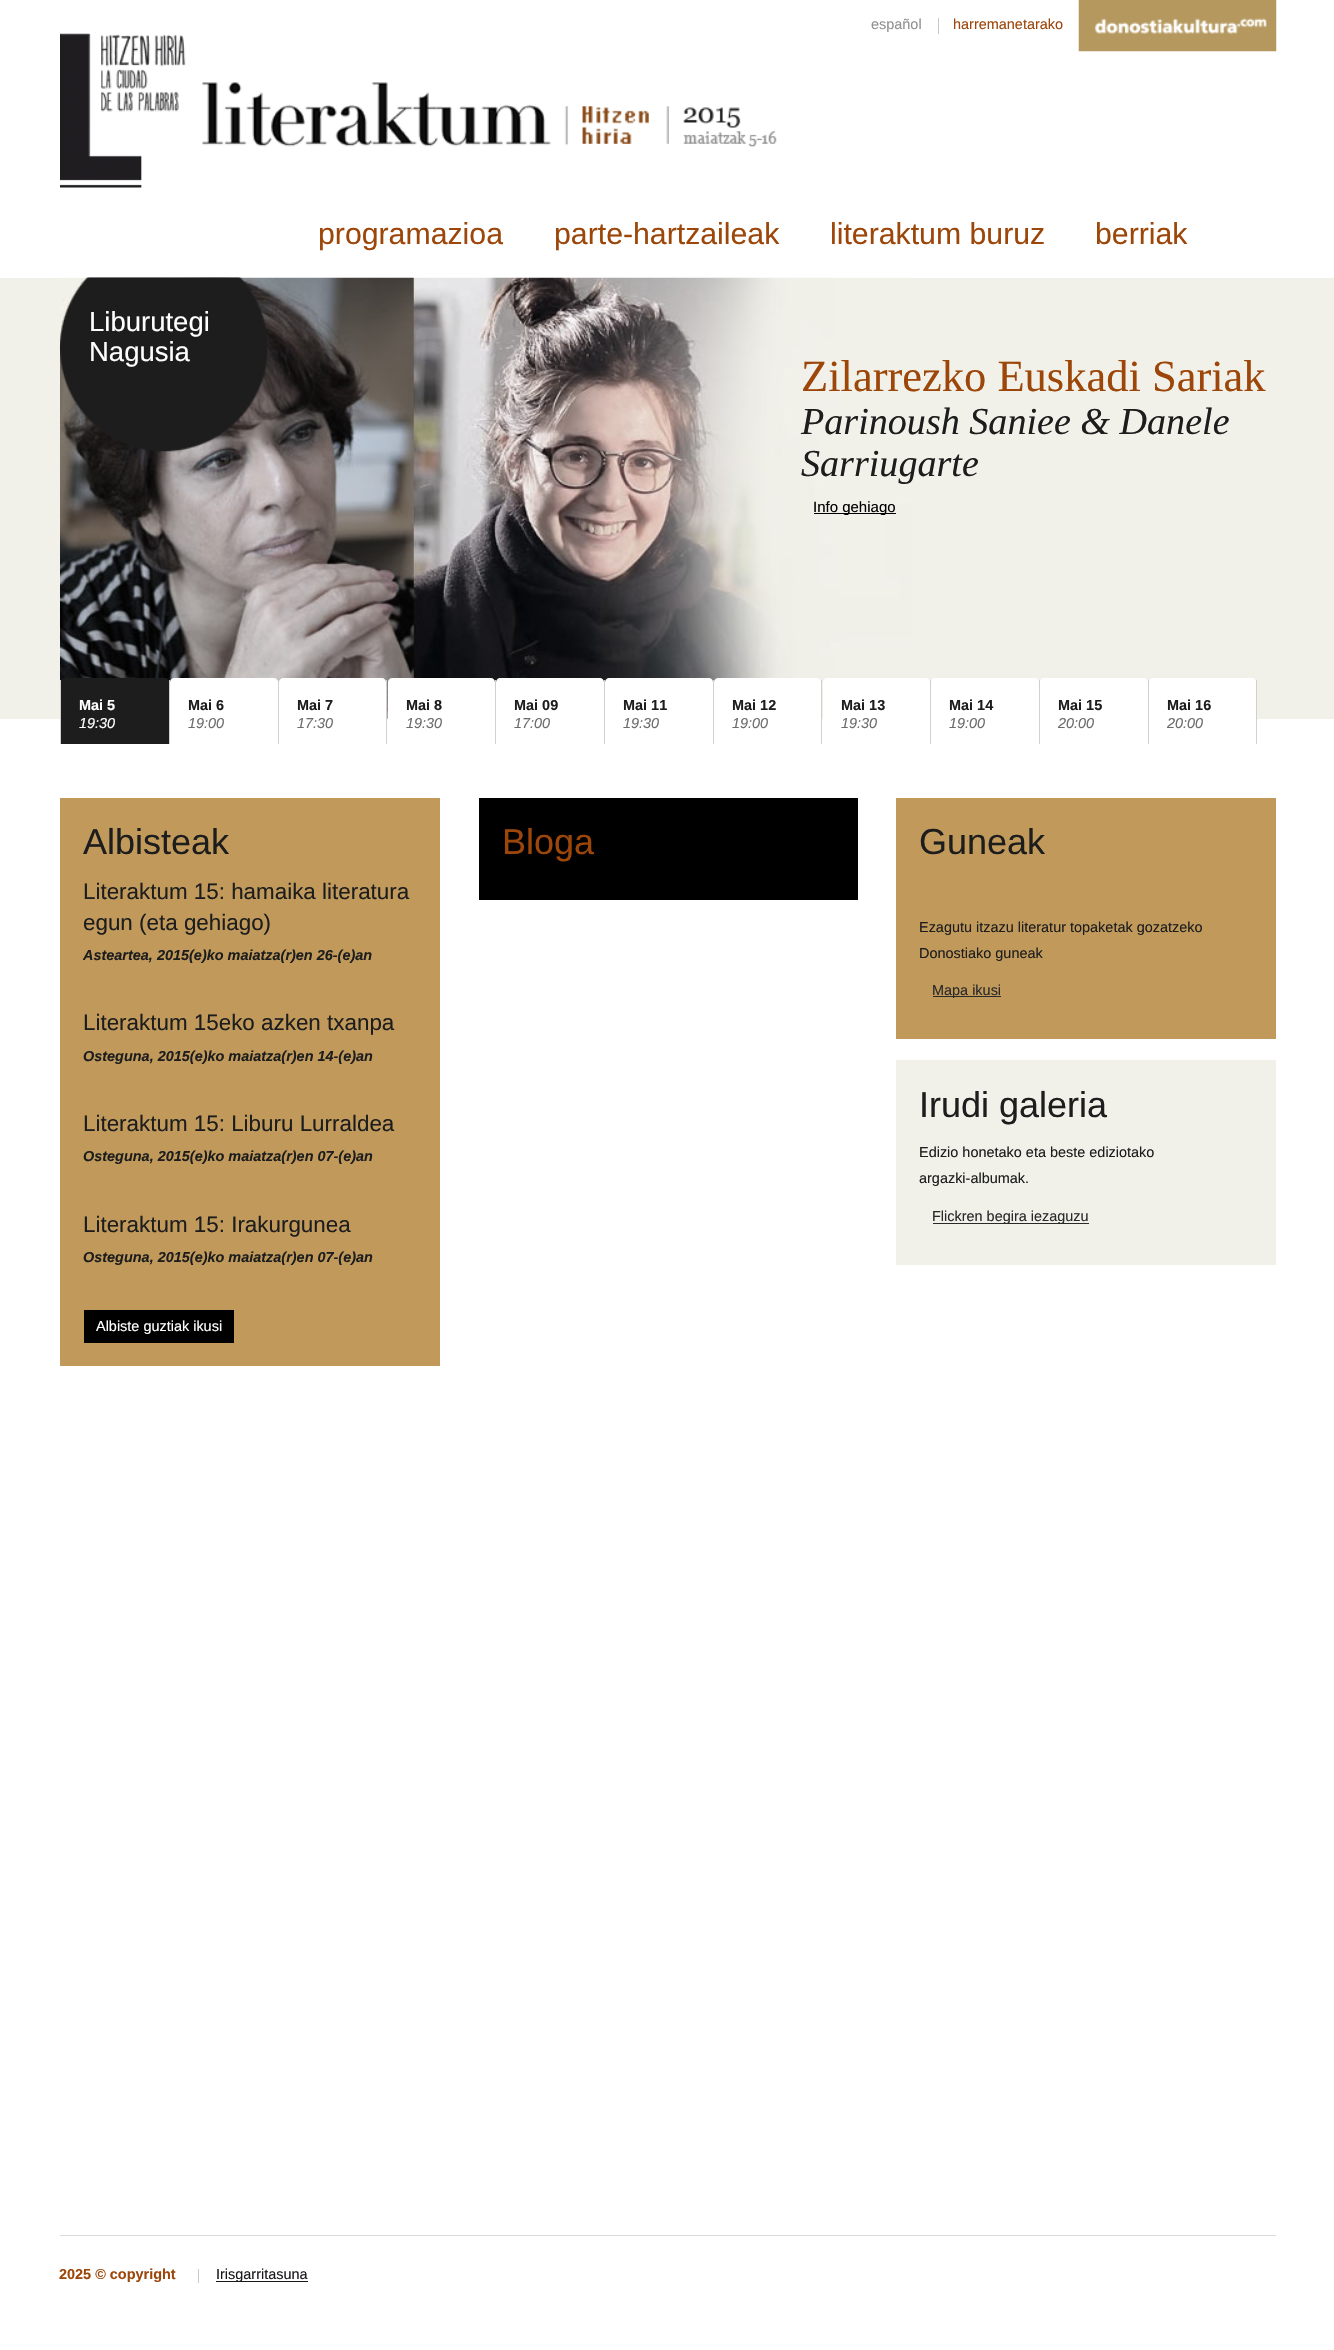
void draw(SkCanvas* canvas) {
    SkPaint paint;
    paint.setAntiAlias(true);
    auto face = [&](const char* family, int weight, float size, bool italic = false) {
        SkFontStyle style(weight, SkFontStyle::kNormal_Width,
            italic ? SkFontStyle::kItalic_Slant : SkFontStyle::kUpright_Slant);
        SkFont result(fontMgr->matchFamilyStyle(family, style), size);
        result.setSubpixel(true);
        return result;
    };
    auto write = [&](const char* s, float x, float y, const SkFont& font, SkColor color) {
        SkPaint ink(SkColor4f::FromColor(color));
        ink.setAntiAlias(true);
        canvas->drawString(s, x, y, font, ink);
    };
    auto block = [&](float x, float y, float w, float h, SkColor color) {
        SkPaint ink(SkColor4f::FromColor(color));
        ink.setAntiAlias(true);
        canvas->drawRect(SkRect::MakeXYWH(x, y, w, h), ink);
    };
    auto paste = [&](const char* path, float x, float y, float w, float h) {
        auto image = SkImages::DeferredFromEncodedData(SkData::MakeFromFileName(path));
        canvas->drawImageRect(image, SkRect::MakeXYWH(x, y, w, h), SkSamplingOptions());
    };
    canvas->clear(SK_ColorWHITE);
    auto kFont1 = face("Liberation Sans", 400, 14.45f);
    write("español", 871, 29, kFont1, SkColorSetRGB(145, 145, 145));
    block(938, 18, 1, 16, SkColorSetRGB(202, 201, 199));
    write("harremanetarako", 953, 29, kFont1, SkColorSetRGB(157, 70, 9));
    paste("pic1.png", 1078, 0, 199, 52);
    paste("pic2.png", 60, 33, 717, 155);
    auto kFont2 = face("Liberation Sans", 400, 30.25f);
    write("programazioa", 318, 244, kFont2, SkColorSetRGB(157, 70, 9));
    write("parte-hartzaileak", 554, 244, kFont2, SkColorSetRGB(157, 70, 9));
    write("literaktum buruz", 830, 244, kFont2, SkColorSetRGB(157, 70, 9));
    write("berriak", 1095, 244, kFont2, SkColorSetRGB(157, 70, 9));
    block(0, 278, 1334, 441, SkColorSetRGB(241, 241, 234));
    paste("pic3.png", 60, 277, 853, 442);
    paste("pic4.png", 60, 277, 208, 175);
    auto kFont3 = face("Liberation Sans", 400, 27.5f);
    write("Liburutegi", 89, 331, kFont3, SK_ColorWHITE);
    write("Nagusia", 89, 361, kFont3, SK_ColorWHITE);
    auto kFont4 = face("Liberation Serif", 400, 44.5f);
    write("Zilarrezko Euskadi Sariak", 801, 391, kFont4, SkColorSetRGB(157, 70, 9));
    auto kFont5 = face("Liberation Serif", 400, 38.1f, true);
    write("Parinoush Saniee & Danele", 801, 434, kFont5, SkColorSetRGB(29, 29, 29));
    write("Sarriugarte", 801, 476, kFont5, SkColorSetRGB(29, 29, 29));
    block(814, 513, 82, 1, SK_ColorBLACK);
    auto kFont6 = face("Liberation Sans", 400, 15);
    write("Info gehiago", 813, 512, kFont6, SK_ColorBLACK);
    block(169, 680, 1, 64, SkColorSetRGB(209, 209, 203));
    block(60, 680, 1, 64, SkColorSetRGB(209, 209, 203));
    paint.setColor(SkColorSetRGB(29, 29, 29));
    canvas->drawPath(SkPathBuilder().moveTo(65, 678).lineTo(165, 678).cubicTo(167, 678, 169, 680, 169, 682).lineTo(169, 744).lineTo(61, 744).lineTo(61, 682).cubicTo(61, 680, 63, 678, 65, 678).close().detach(), paint);
    auto kFont7 = face("Liberation Sans", 700, 14.45f);
    write("Mai 5", 79, 710, kFont7, SK_ColorWHITE);
    auto kFont8 = face("Liberation Sans", 400, 14.45f, true);
    write("19:30", 79, 728, kFont8, SK_ColorWHITE);
    block(278, 680, 1, 64, SkColorSetRGB(209, 209, 203));
    paint.setColor(SK_ColorWHITE);
    canvas->drawPath(SkPathBuilder().moveTo(174, 678).lineTo(274, 678).cubicTo(276, 678, 278, 680, 278, 682).lineTo(278, 744).lineTo(170, 744).lineTo(170, 682).cubicTo(170, 680, 172, 678, 174, 678).close().detach(), paint);
    write("Mai 6", 188, 710, kFont7, SkColorSetRGB(29, 29, 29));
    write("19:00", 188, 728, kFont8, SkColorSetRGB(108, 108, 108));
    block(386, 680, 1, 64, SkColorSetRGB(209, 209, 203));
    canvas->drawPath(SkPathBuilder().moveTo(283, 678).lineTo(382, 678).cubicTo(384, 678, 386, 680, 386, 682).lineTo(386, 744).lineTo(279, 744).lineTo(279, 682).cubicTo(279, 680, 281, 678, 283, 678).close().detach(), paint);
    write("Mai 7", 297, 710, kFont7, SkColorSetRGB(29, 29, 29));
    write("17:30", 297, 728, kFont8, SkColorSetRGB(108, 108, 108));
    block(495, 680, 1, 64, SkColorSetRGB(209, 209, 203));
    canvas->drawPath(SkPathBuilder().moveTo(392, 678).lineTo(491, 678).cubicTo(493, 678, 495, 680, 495, 682).lineTo(495, 744).lineTo(388, 744).lineTo(388, 682).cubicTo(388, 680, 390, 678, 392, 678).close().detach(), paint);
    write("Mai 8", 406, 710, kFont7, SkColorSetRGB(29, 29, 29));
    write("19:30", 406, 728, kFont8, SkColorSetRGB(108, 108, 108));
    block(604, 680, 1, 64, SkColorSetRGB(209, 209, 203));
    canvas->drawPath(SkPathBuilder().moveTo(500, 678).lineTo(600, 678).cubicTo(602, 678, 604, 680, 604, 682).lineTo(604, 744).lineTo(496, 744).lineTo(496, 682).cubicTo(496, 680, 498, 678, 500, 678).close().detach(), paint);
    write("Mai 09", 514, 710, kFont7, SkColorSetRGB(29, 29, 29));
    write("17:00", 514, 728, kFont8, SkColorSetRGB(108, 108, 108));
    block(713, 680, 1, 64, SkColorSetRGB(209, 209, 203));
    canvas->drawPath(SkPathBuilder().moveTo(609, 678).lineTo(709, 678).cubicTo(711, 678, 713, 680, 713, 682).lineTo(713, 744).lineTo(605, 744).lineTo(605, 682).cubicTo(605, 680, 607, 678, 609, 678).close().detach(), paint);
    write("Mai 11", 623, 710, kFont7, SkColorSetRGB(29, 29, 29));
    write("19:30", 623, 728, kFont8, SkColorSetRGB(108, 108, 108));
    block(821, 680, 1, 64, SkColorSetRGB(209, 209, 203));
    canvas->drawPath(SkPathBuilder().moveTo(718, 678).lineTo(817, 678).cubicTo(819, 678, 821, 680, 821, 682).lineTo(821, 744).lineTo(714, 744).lineTo(714, 682).cubicTo(714, 680, 716, 678, 718, 678).close().detach(), paint);
    write("Mai 12", 732, 710, kFont7, SkColorSetRGB(29, 29, 29));
    write("19:00", 732, 728, kFont8, SkColorSetRGB(108, 108, 108));
    block(930, 680, 1, 64, SkColorSetRGB(209, 209, 203));
    canvas->drawPath(SkPathBuilder().moveTo(827, 678).lineTo(926, 678).cubicTo(928, 678, 930, 680, 930, 682).lineTo(930, 744).lineTo(823, 744).lineTo(823, 682).cubicTo(823, 680, 825, 678, 827, 678).close().detach(), paint);
    write("Mai 13", 841, 710, kFont7, SkColorSetRGB(29, 29, 29));
    write("19:30", 841, 728, kFont8, SkColorSetRGB(108, 108, 108));
    block(1039, 680, 1, 64, SkColorSetRGB(209, 209, 203));
    canvas->drawPath(SkPathBuilder().moveTo(935, 678).lineTo(1035, 678).cubicTo(1037, 678, 1039, 680, 1039, 682).lineTo(1039, 744).lineTo(931, 744).lineTo(931, 682).cubicTo(931, 680, 933, 678, 935, 678).close().detach(), paint);
    write("Mai 14", 949, 710, kFont7, SkColorSetRGB(29, 29, 29));
    write("19:00", 949, 728, kFont8, SkColorSetRGB(108, 108, 108));
    block(1148, 680, 1, 64, SkColorSetRGB(209, 209, 203));
    canvas->drawPath(SkPathBuilder().moveTo(1044, 678).lineTo(1144, 678).cubicTo(1146, 678, 1148, 680, 1148, 682).lineTo(1148, 744).lineTo(1040, 744).lineTo(1040, 682).cubicTo(1040, 680, 1042, 678, 1044, 678).close().detach(), paint);
    write("Mai 15", 1058, 710, kFont7, SkColorSetRGB(29, 29, 29));
    write("20:00", 1058, 728, kFont8, SkColorSetRGB(108, 108, 108));
    block(1256, 680, 1, 64, SkColorSetRGB(209, 209, 203));
    canvas->drawPath(SkPathBuilder().moveTo(1153, 678).lineTo(1252, 678).cubicTo(1254, 678, 1256, 680, 1256, 682).lineTo(1256, 744).lineTo(1149, 744).lineTo(1149, 682).cubicTo(1149, 680, 1151, 678, 1153, 678).close().detach(), paint);
    write("Mai 16", 1167, 710, kFont7, SkColorSetRGB(29, 29, 29));
    write("20:00", 1167, 728, kFont8, SkColorSetRGB(108, 108, 108));
    block(60, 798, 380, 568, SkColorSetRGB(193, 154, 91));
    auto kFont9 = face("Liberation Sans", 400, 36);
    write("Albisteak", 83, 854, kFont9, SkColorSetRGB(29, 29, 29));
    auto kFont10 = face("Liberation Sans", 400, 22.4f);
    write("Literaktum 15: hamaika literatura", 83, 899, kFont10, SkColorSetRGB(29, 29, 29));
    write("egun (eta gehiago)", 83, 930, kFont10, SkColorSetRGB(29, 29, 29));
    auto kFont11 = face("Liberation Sans", 700, 14.45f, true);
    write("Asteartea, 2015(e)ko maiatza(r)en 26-(e)an", 83, 960, kFont11, SkColorSetRGB(29, 29, 29));
    write("Literaktum 15eko azken txanpa", 83, 1030, kFont10, SkColorSetRGB(29, 29, 29));
    write("Osteguna, 2015(e)ko maiatza(r)en 14-(e)an", 83, 1061, kFont11, SkColorSetRGB(29, 29, 29));
    write("Literaktum 15: Liburu Lurraldea", 83, 1131, kFont10, SkColorSetRGB(29, 29, 29));
    write("Osteguna, 2015(e)ko maiatza(r)en 07-(e)an", 83, 1161, kFont11, SkColorSetRGB(29, 29, 29));
    write("Literaktum 15: Irakurgunea", 83, 1232, kFont10, SkColorSetRGB(29, 29, 29));
    write("Osteguna, 2015(e)ko maiatza(r)en 07-(e)an", 83, 1262, kFont11, SkColorSetRGB(29, 29, 29));
    block(84, 1310, 150, 33, SK_ColorBLACK);
    write("Albiste guztiak ikusi", 96, 1331, kFont1, SK_ColorWHITE);
    block(479, 798, 379, 102, SK_ColorBLACK);
    write("Bloga", 502, 854, kFont9, SkColorSetRGB(157, 70, 9));
    block(896, 798, 380, 241, SkColorSetRGB(193, 154, 91));
    write("Guneak", 919, 854, kFont9, SkColorSetRGB(29, 29, 29));
    write("Ezagutu itzazu literatur topaketak gozatzeko", 919, 932, kFont1, SkColorSetRGB(29, 29, 29));
    write("Donostiako guneak", 919, 958, kFont1, SkColorSetRGB(29, 29, 29));
    block(933, 996, 68, 1, SkColorSetRGB(42, 42, 42));
    write("Mapa ikusi", 932, 995, kFont1, SkColorSetRGB(42, 42, 42));
    block(896, 1060, 380, 205, SkColorSetRGB(241, 241, 234));
    write("Irudi galeria", 919, 1117, kFont9, SkColorSetRGB(29, 29, 29));
    write("Edizio honetako eta beste ediziotako", 919, 1157, kFont1, SkColorSetRGB(29, 29, 29));
    write("argazki-albumak.", 919, 1183, kFont1, SkColorSetRGB(29, 29, 29));
    block(933, 1223, 156, 1, SkColorSetRGB(42, 42, 42));
    write("Flickren begira iezaguzu", 932, 1221, kFont1, SkColorSetRGB(42, 42, 42));
    block(60, 2235, 1216, 1, SkColorSetRGB(219, 219, 219));
    write("2025 © copyright", 59, 2279, kFont7, SkColorSetRGB(157, 70, 9));
    block(198, 2269, 1, 14, SkColorSetRGB(202, 201, 199));
    block(216, 2281, 92, 1, SkColorSetRGB(26, 23, 27));
    write("Irisgarritasuna", 216, 2279, kFont1, SkColorSetRGB(26, 23, 27));
}
